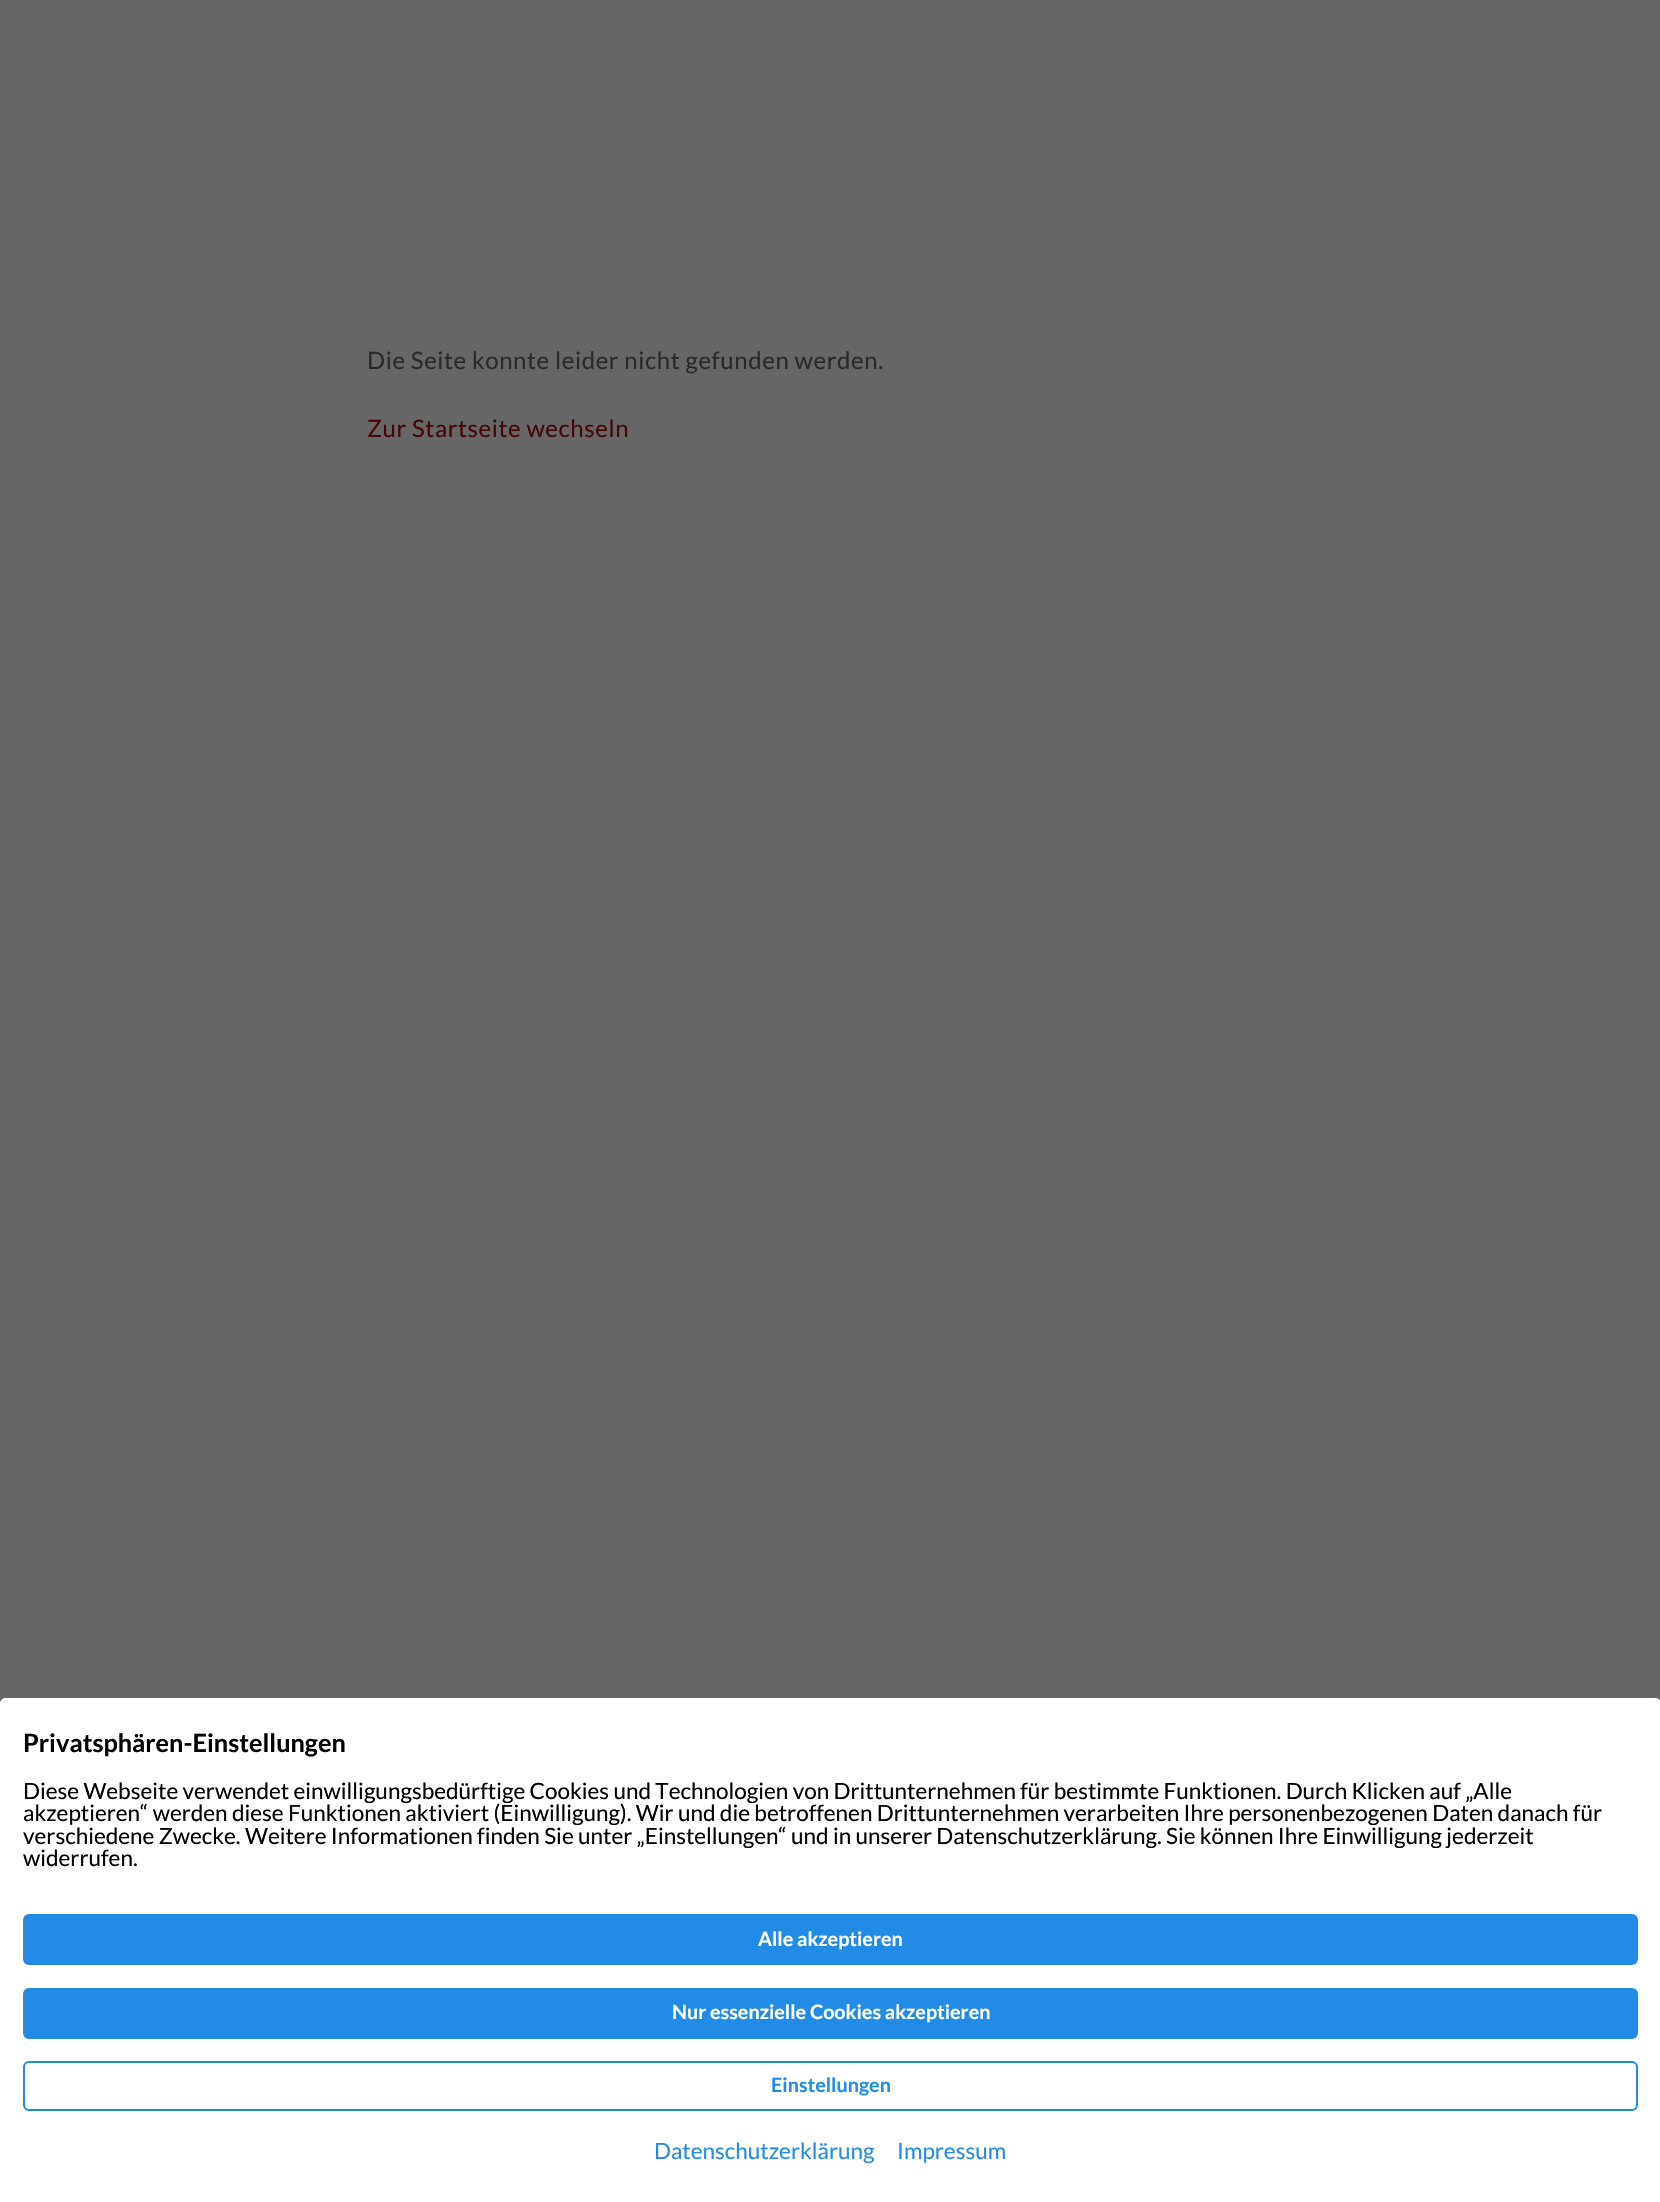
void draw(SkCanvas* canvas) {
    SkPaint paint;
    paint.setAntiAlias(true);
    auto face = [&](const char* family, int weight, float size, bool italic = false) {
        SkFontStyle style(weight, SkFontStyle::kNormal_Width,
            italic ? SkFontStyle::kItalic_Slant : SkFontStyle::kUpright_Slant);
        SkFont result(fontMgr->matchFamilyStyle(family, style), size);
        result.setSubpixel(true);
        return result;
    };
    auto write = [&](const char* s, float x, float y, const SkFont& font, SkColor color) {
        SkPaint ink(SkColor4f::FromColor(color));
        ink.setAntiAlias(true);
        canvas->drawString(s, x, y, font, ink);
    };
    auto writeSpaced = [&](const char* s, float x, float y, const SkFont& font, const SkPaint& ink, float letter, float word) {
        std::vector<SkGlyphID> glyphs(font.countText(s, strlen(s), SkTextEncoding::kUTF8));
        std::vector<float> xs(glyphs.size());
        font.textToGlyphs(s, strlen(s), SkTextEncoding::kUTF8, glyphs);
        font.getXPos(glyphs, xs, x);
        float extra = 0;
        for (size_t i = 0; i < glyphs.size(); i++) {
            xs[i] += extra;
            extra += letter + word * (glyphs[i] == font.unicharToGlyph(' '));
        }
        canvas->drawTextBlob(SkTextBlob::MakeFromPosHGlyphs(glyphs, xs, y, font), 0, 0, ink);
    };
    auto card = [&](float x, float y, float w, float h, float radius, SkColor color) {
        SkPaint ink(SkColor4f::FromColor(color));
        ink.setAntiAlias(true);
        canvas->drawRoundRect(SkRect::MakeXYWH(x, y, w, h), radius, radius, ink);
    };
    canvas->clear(SkColorSetRGB(102, 102, 102));
    auto kFont1 = face("Lato", 400, 24);
    paint.setColor(SkColorSetRGB(41, 41, 41));
    writeSpaced("Die Seite konnte leider nicht gefunden werden.", 367, 369, kFont1, paint, 0.6f, 0);
    paint.setColor(SkColorSetRGB(71, 6, 6));
    writeSpaced("Zur Startseite wechseln", 367, 437, kFont1, paint, 0.6f, 0);
    paint.setColor(SK_ColorWHITE);
    canvas->drawPath(SkPathBuilder().moveTo(6, 1698).lineTo(1655, 1698).cubicTo(1658.5f, 1698, 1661, 1700.5f, 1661, 1704).lineTo(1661, 2202).lineTo(0, 2202).lineTo(0, 1704).cubicTo(0, 1700.5f, 2.5f, 1698, 6, 1698).close().detach(), paint);
    card(0, 1698, 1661, 504, 6, SK_ColorWHITE);
    auto kFont2 = face("Lato", 700, 25.25f);
    write("Privatsphären-Einstellungen", 23, 1752, kFont2, SK_ColorBLACK);
    auto kFont3 = face("Lato", 400, 22.5f);
    write("Diese Webseite verwendet einwilligungsbedürftige Cookies und Technologien von Drittunternehmen für bestimmte Funktionen. Durch Klicken auf „Alle", 23, 1799, kFont3, SK_ColorBLACK);
    write("akzeptieren“ werden diese Funktionen aktiviert (Einwilligung). Wir und die betroffenen Drittunternehmen verarbeiten Ihre personenbezogenen Daten danach für", 23, 1821, kFont3, SK_ColorBLACK);
    write("verschiedene Zwecke. Weitere Informationen finden Sie unter „Einstellungen“ und in unserer Datenschutzerklärung. Sie können Ihre Einwilligung jederzeit", 23, 1844, kFont3, SK_ColorBLACK);
    write("widerrufen.", 23, 1866, kFont3, SK_ColorBLACK);
    card(23, 1914, 1615, 51, 6, SkColorSetRGB(34, 139, 230));
    auto kFont4 = face("Lato", 700, 19.75f);
    write("Alle akzeptieren", 758, 1946, kFont4, SK_ColorWHITE);
    card(23, 1988, 1615, 51, 6, SkColorSetRGB(34, 139, 230));
    write("Nur essenzielle Cookies akzeptieren", 672, 2019, kFont4, SK_ColorWHITE);
    paint.setStyle(SkPaint::kStroke_Style);
    paint.setStrokeWidth(2);
    paint.setColor(SkColorSetRGB(34, 139, 230));
    canvas->drawRoundRect(SkRect::MakeXYWH(24, 2062, 1613, 48), 5, 5, paint);
    write("Einstellungen", 771, 2092, kFont4, SkColorSetRGB(34, 139, 230));
    write("Datenschutzerklärung", 654, 2159, kFont3, SkColorSetRGB(34, 139, 230));
    write("Impressum", 897, 2159, kFont3, SkColorSetRGB(34, 139, 230));
}
